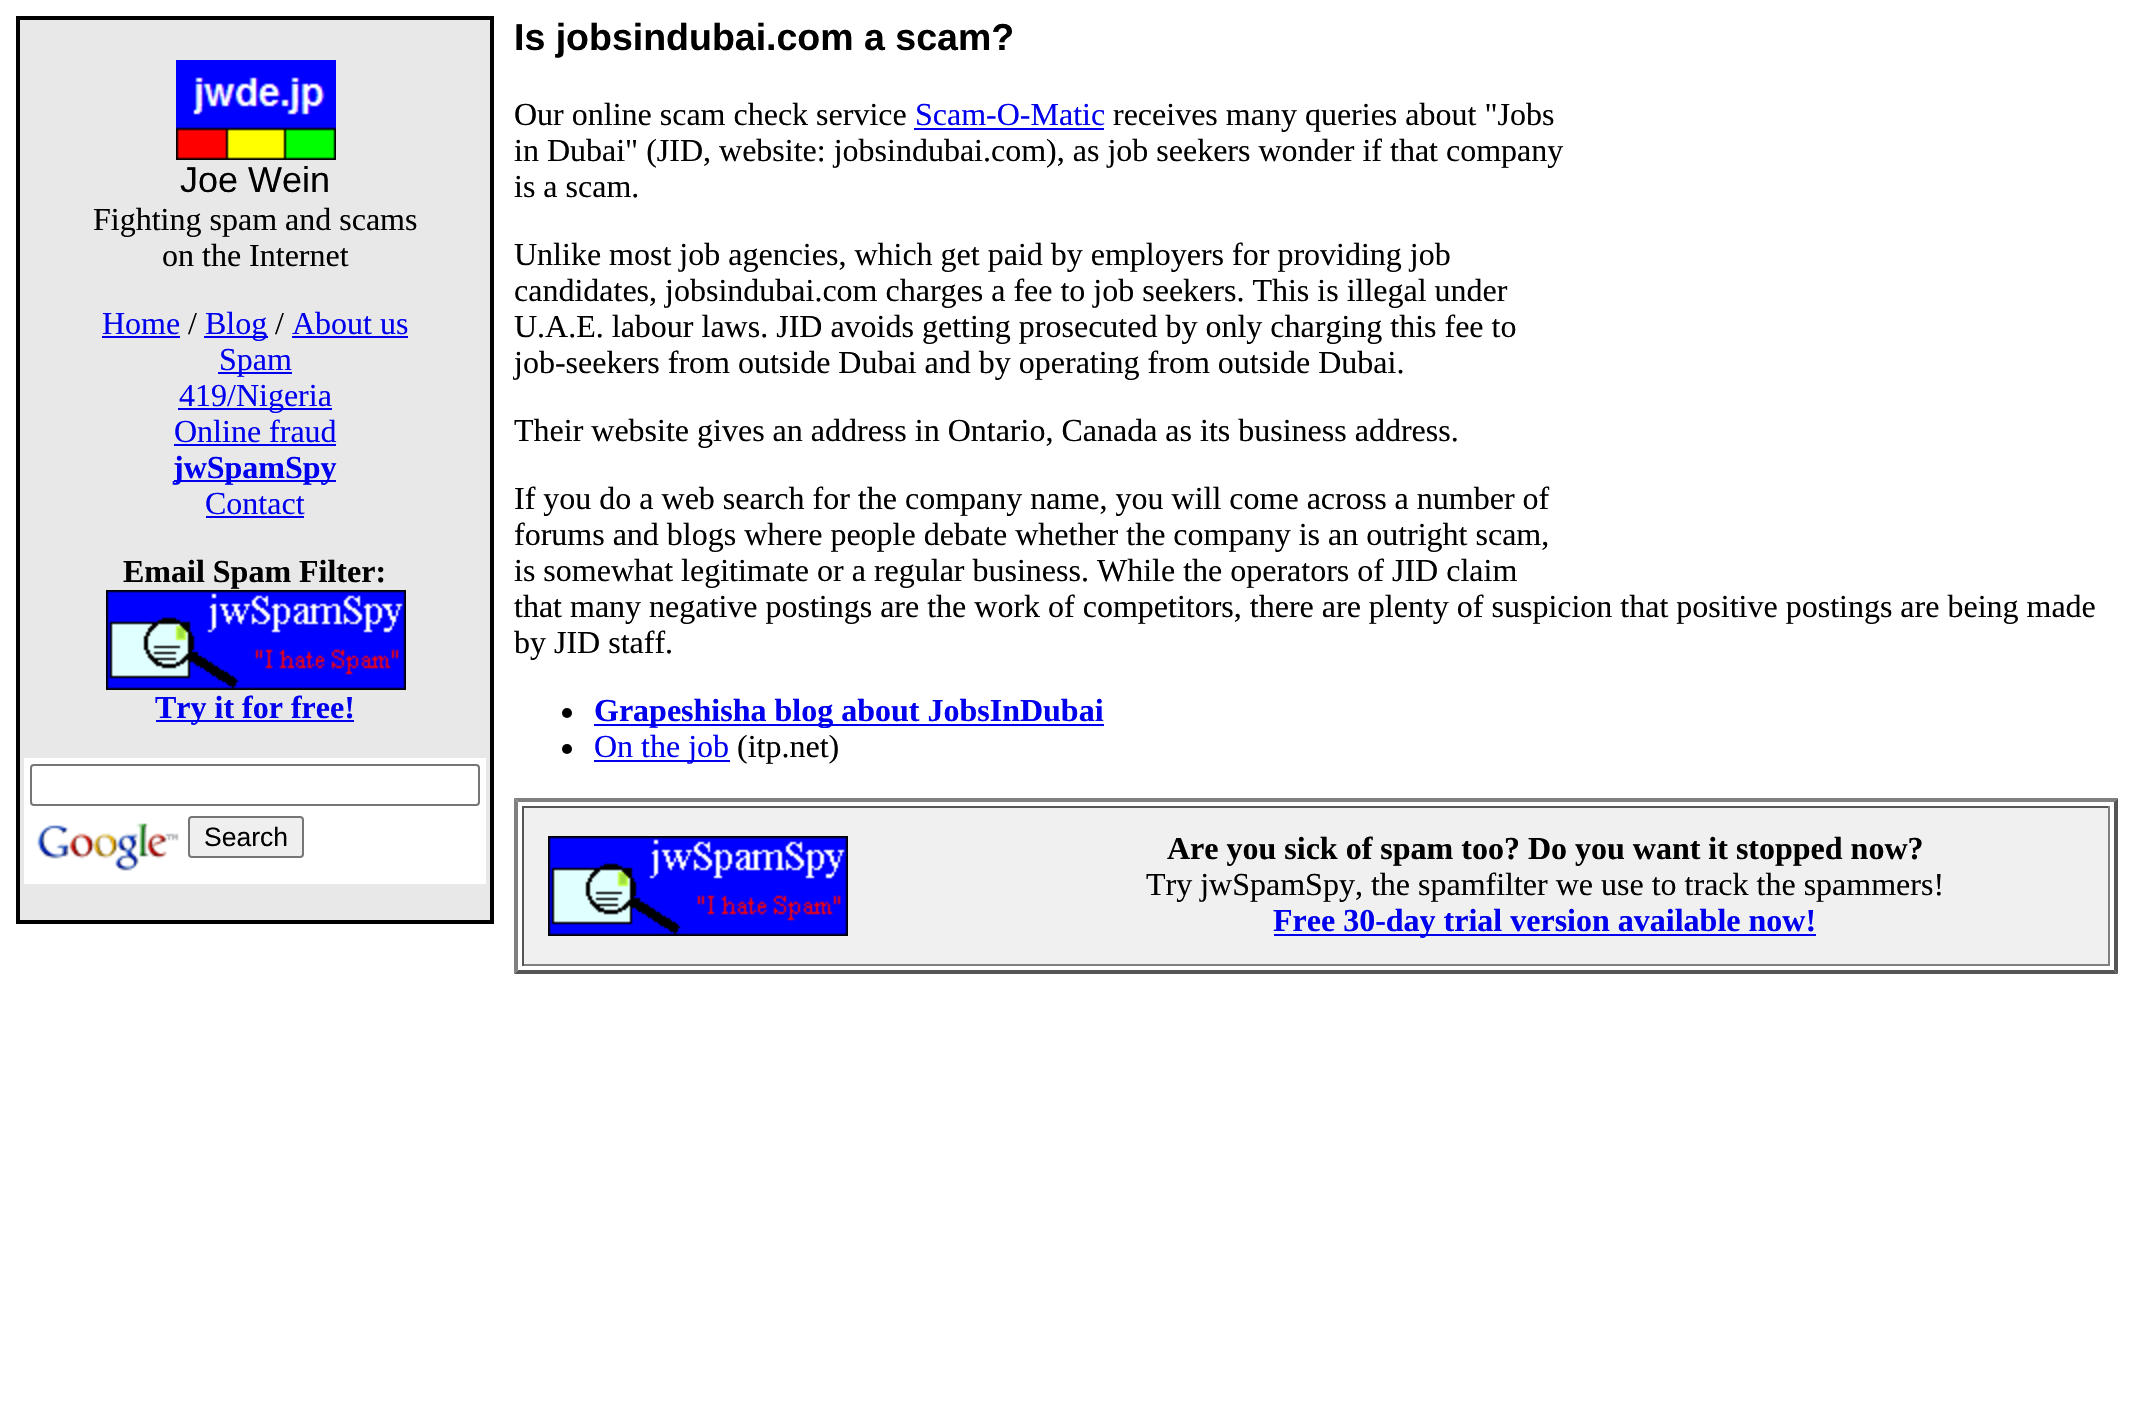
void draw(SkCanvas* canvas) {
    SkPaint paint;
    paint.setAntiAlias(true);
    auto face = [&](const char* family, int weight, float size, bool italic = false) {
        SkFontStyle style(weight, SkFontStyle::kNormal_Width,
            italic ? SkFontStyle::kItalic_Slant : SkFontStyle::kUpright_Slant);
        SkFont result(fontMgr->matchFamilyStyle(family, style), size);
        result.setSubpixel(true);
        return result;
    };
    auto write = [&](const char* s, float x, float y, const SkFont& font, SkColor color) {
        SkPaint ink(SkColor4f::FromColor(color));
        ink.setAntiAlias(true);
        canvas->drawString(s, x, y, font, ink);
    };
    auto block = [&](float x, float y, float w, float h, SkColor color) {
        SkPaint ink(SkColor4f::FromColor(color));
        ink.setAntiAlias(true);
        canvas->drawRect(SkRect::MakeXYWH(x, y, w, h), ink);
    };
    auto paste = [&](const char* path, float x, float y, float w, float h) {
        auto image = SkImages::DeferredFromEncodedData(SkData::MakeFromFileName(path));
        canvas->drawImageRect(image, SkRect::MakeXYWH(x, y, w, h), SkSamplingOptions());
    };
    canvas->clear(SK_ColorWHITE);
    block(16, 16, 478, 908, SK_ColorBLACK);
    block(20, 20, 470, 900, SkColorSetRGB(232, 232, 232));
    paste("pic1.png", 176, 60, 160, 100);
    auto kFont1 = face("Liberation Sans", 400, 36);
    write("Joe Wein", 180, 192, kFont1, SK_ColorBLACK);
    auto kFont2 = face("Liberation Serif", 400, 32);
    write("Fighting spam and scams", 93, 230, kFont2, SK_ColorBLACK);
    write("on the Internet", 162, 266, kFont2, SK_ColorBLACK);
    write("Home", 102, 334, kFont2, SkColorSetRGB(0, 0, 238));
    block(102, 336, 78, 2, SkColorSetRGB(0, 0, 238));
    write("/", 188, 334, kFont2, SK_ColorBLACK);
    block(204, 336, 64, 2, SkColorSetRGB(0, 0, 238));
    write("Blog", 205, 334, kFont2, SkColorSetRGB(0, 0, 238));
    write("/", 275, 334, kFont2, SK_ColorBLACK);
    write("About us", 292, 334, kFont2, SkColorSetRGB(0, 0, 238));
    block(292, 336, 116, 2, SkColorSetRGB(0, 0, 238));
    block(218, 372, 74, 2, SkColorSetRGB(0, 0, 238));
    write("Spam", 219, 370, kFont2, SkColorSetRGB(0, 0, 238));
    block(178, 408, 154, 2, SkColorSetRGB(0, 0, 238));
    write("419/Nigeria", 179, 406, kFont2, SkColorSetRGB(0, 0, 238));
    write("Online fraud", 174, 442, kFont2, SkColorSetRGB(0, 0, 238));
    block(174, 444, 162, 2, SkColorSetRGB(0, 0, 238));
    block(174, 480, 162, 2, SkColorSetRGB(0, 0, 238));
    auto kFont3 = face("Liberation Serif", 700, 32);
    write("jwSpamSpy", 173, 478, kFont3, SkColorSetRGB(0, 0, 238));
    write("Contact", 205, 514, kFont2, SkColorSetRGB(0, 0, 238));
    block(206, 516, 98, 2, SkColorSetRGB(0, 0, 238));
    write("Email Spam Filter:", 123, 582, kFont3, SK_ColorBLACK);
    paste("pic2.png", 106, 590, 300, 100);
    block(156, 720, 198, 2, SkColorSetRGB(0, 0, 238));
    write("Try it for free!", 155, 718, kFont3, SkColorSetRGB(0, 0, 238));
    block(24, 758, 462, 126, SK_ColorWHITE);
    paint.setStyle(SkPaint::kStroke_Style);
    paint.setStrokeWidth(2);
    paint.setColor(SkColorSetRGB(118, 118, 118));
    canvas->drawRoundRect(SkRect::MakeXYWH(31, 765, 448, 40), 3, 3, paint);
    paste("pic3.png", 37, 823, 142, 48);
    paint.setStyle(SkPaint::kFill_Style);
    paint.setColor(SkColorSetRGB(239, 239, 239));
    canvas->drawRoundRect(SkRect::MakeXYWH(189, 817, 114, 40), 3, 3, paint);
    paint.setStyle(SkPaint::kStroke_Style);
    paint.setColor(SkColorSetRGB(118, 118, 118));
    canvas->drawRoundRect(SkRect::MakeXYWH(189, 817, 114, 40), 3, 3, paint);
    auto kFont4 = face("Liberation Sans", 400, 26.5f);
    write("Search", 204, 846, kFont4, SK_ColorBLACK);
    auto kFont5 = face("Liberation Sans", 700, 37.5f);
    write("Is jobsindubai.com a scam?", 514, 50, kFont5, SK_ColorBLACK);
    write("Our online scam check service", 514, 125, kFont2, SK_ColorBLACK);
    write("Scam-O-Matic", 915, 125, kFont2, SkColorSetRGB(0, 0, 238));
    block(914, 128, 190, 2, SkColorSetRGB(0, 0, 238));
    write("receives many queries about \"Jobs", 1113, 125, kFont2, SK_ColorBLACK);
    write("in Dubai\" (JID, website: jobsindubai.com), as job seekers wonder if that company", 514, 161, kFont2, SK_ColorBLACK);
    write("is a scam.", 514, 197, kFont2, SK_ColorBLACK);
    write("Unlike most job agencies, which get paid by employers for providing job", 514, 265, kFont2, SK_ColorBLACK);
    write("candidates, jobsindubai.com charges a fee to job seekers. This is illegal under", 514, 301, kFont2, SK_ColorBLACK);
    write("U.A.E. labour laws. JID avoids getting prosecuted by only charging this fee to", 514, 337, kFont2, SK_ColorBLACK);
    write("job-seekers from outside Dubai and by operating from outside Dubai.", 514, 373, kFont2, SK_ColorBLACK);
    write("Their website gives an address in Ontario, Canada as its business address.", 514, 441, kFont2, SK_ColorBLACK);
    write("If you do a web search for the company name, you will come across a number of", 514, 509, kFont2, SK_ColorBLACK);
    write("forums and blogs where people debate whether the company is an outright scam,", 514, 545, kFont2, SK_ColorBLACK);
    write("is somewhat legitimate or a regular business. While the operators of JID claim", 514, 581, kFont2, SK_ColorBLACK);
    write("that many negative postings are the work of competitors, there are plenty of suspicion that positive postings are being made", 514, 617, kFont2, SK_ColorBLACK);
    write("by JID staff.", 514, 653, kFont2, SK_ColorBLACK);
    paint.setStyle(SkPaint::kFill_Style);
    paint.setColor(SK_ColorBLACK);
    canvas->drawCircle(567, 713, 5, paint);
    block(594, 724, 510, 2, SkColorSetRGB(0, 0, 238));
    write("Grapeshisha blog about JobsInDubai", 594, 721, kFont3, SkColorSetRGB(0, 0, 238));
    canvas->drawCircle(567, 749, 5, paint);
    block(594, 760, 136, 2, SkColorSetRGB(0, 0, 238));
    write("On the job", 594, 757, kFont2, SkColorSetRGB(0, 0, 238));
    write("(itp.net)", 737, 757, kFont2, SK_ColorBLACK);
    paint.setColor(SkColorSetRGB(128, 128, 128));
    canvas->drawPath(SkPathBuilder().moveTo(514, 798).lineTo(2118, 798).lineTo(2114, 802).lineTo(518, 802).close().detach(), paint);
    paint.setColor(SkColorSetRGB(85, 85, 85));
    canvas->drawPath(SkPathBuilder().moveTo(2118, 798).lineTo(2118, 974).lineTo(2114, 970).lineTo(2114, 802).close().detach(), paint);
    canvas->drawPath(SkPathBuilder().moveTo(2118, 974).lineTo(514, 974).lineTo(518, 970).lineTo(2114, 970).close().detach(), paint);
    paint.setColor(SkColorSetRGB(128, 128, 128));
    canvas->drawPath(SkPathBuilder().moveTo(514, 974).lineTo(514, 798).lineTo(518, 802).lineTo(518, 970).close().detach(), paint);
    block(524, 808, 1584, 156, SkColorSetRGB(240, 240, 240));
    block(522, 806, 1588, 2, SkColorSetRGB(85, 85, 85));
    block(2108, 806, 2, 160, SkColorSetRGB(128, 128, 128));
    block(522, 964, 1588, 2, SkColorSetRGB(128, 128, 128));
    block(522, 806, 2, 160, SkColorSetRGB(85, 85, 85));
    paste("pic2.png", 548, 836, 300, 100);
    write("Are you sick of spam too? Do you want it stopped now?", 1167, 859, kFont3, SK_ColorBLACK);
    write("Try jwSpamSpy, the spamfilter we use to track the spammers!", 1146, 895, kFont2, SK_ColorBLACK);
    block(1274, 934, 542, 2, SkColorSetRGB(0, 0, 238));
    write("Free 30-day trial version available now!", 1273, 931, kFont3, SkColorSetRGB(0, 0, 238));
}
